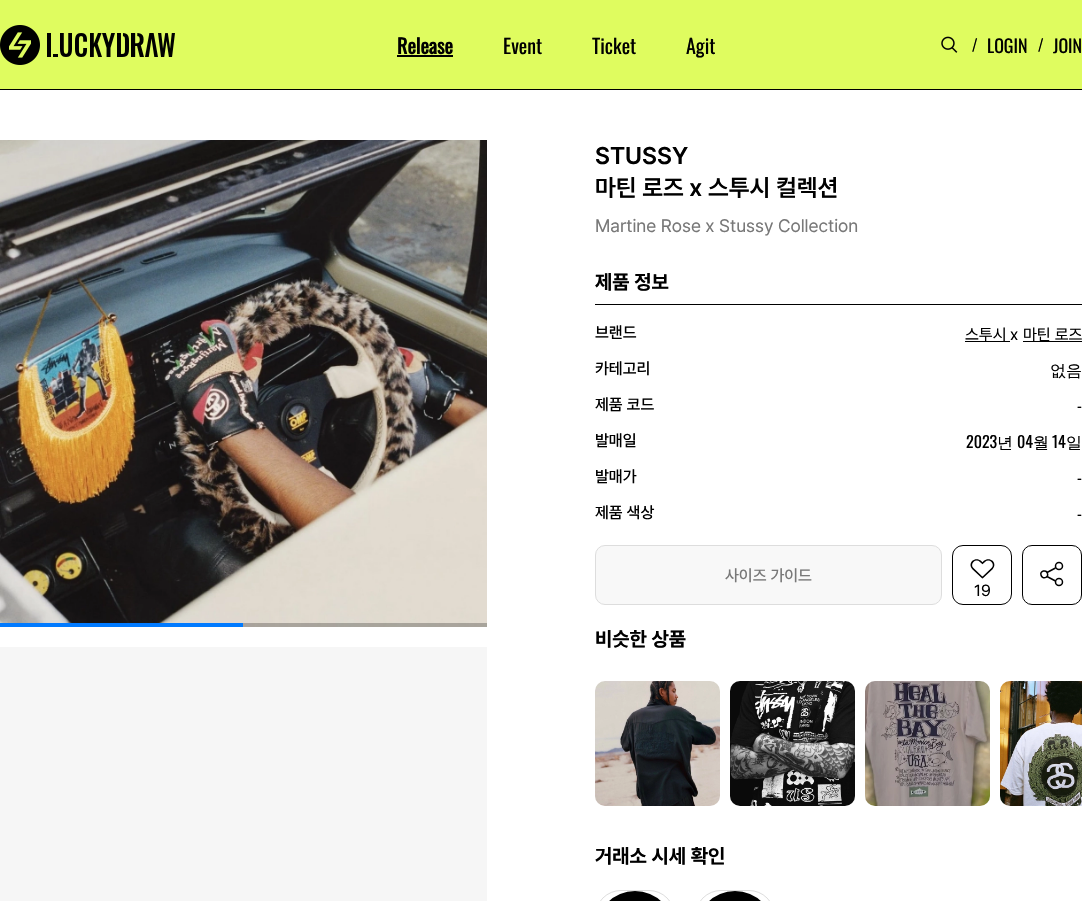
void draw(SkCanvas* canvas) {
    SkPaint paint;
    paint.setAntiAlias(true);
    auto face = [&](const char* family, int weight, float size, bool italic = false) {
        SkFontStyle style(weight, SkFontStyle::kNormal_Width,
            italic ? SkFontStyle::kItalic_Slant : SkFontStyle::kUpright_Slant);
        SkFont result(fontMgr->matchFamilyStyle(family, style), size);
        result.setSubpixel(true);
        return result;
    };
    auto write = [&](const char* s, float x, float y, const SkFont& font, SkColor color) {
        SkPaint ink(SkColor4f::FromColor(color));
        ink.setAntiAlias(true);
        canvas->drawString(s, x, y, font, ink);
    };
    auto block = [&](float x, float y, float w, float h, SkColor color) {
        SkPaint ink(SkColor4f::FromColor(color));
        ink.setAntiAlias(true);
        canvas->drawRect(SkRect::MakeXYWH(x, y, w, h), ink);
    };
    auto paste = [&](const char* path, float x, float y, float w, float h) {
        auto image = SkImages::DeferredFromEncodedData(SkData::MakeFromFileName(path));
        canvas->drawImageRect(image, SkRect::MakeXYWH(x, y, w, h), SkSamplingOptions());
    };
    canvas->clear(SK_ColorWHITE);
    block(0, 0, 1082, 89, SkColorSetRGB(223, 252, 95));
    block(0, 89, 1082, 1, SK_ColorBLACK);
    paste("pic1.png", 0, 25, 175, 40);
    auto kFont1 = face("Oswald", 700, 20);
    write("Release", 397, 54, kFont1, SK_ColorBLACK);
    block(397, 55, 56, 2, SK_ColorBLACK);
    auto kFont2 = face("Oswald", 400, 20);
    write("Event", 503, 54, kFont2, SK_ColorBLACK);
    write("Ticket", 592, 54, kFont2, SK_ColorBLACK);
    write("Agit", 686, 54, kFont2, SK_ColorBLACK);
    paste("pic2.png", 941, 36, 17, 17);
    auto kFont3 = face("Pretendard", 400, 16);
    write("/", 972, 50, kFont3, SK_ColorBLACK);
    auto kFont4 = face("Oswald", 400, 18);
    write("LOGIN", 987, 53, kFont4, SK_ColorBLACK);
    write("/", 1038, 50, kFont3, SK_ColorBLACK);
    write("JOIN", 1053, 53, kFont4, SK_ColorBLACK);
    paste("pic3.png", 0, 140, 487, 487);
    block(243, 623, 244, 4, SkColorSetARGB(64, 0, 0, 0));
    block(0, 623, 243, 4, SkColorSetRGB(0, 122, 255));
    block(0, 647, 487, 254, SkColorSetRGB(246, 246, 246));
    auto kFont5 = face("Pretendard", 600, 24);
    write("STUSSY", 595, 164, kFont5, SK_ColorBLACK);
    write("마틴 로즈 x 스투시 컬렉션", 595, 196, kFont5, SK_ColorBLACK);
    auto kFont6 = face("Pretendard", 400, 18);
    write("Martine Rose x Stussy Collection", 595, 232, kFont6, SkColorSetRGB(120, 120, 120));
    auto kFont7 = face("Pretendard", 700, 20);
    write("제품 정보", 595, 289, kFont7, SK_ColorBLACK);
    block(595, 304, 487, 1, SK_ColorBLACK);
    auto kFont8 = face("Pretendard", 500, 16);
    write("브랜드", 595, 338, kFont8, SK_ColorBLACK);
    block(965, 341, 45, 1, SK_ColorBLACK);
    write("스투시", 965, 340, kFont3, SK_ColorBLACK);
    write("x", 1010, 340, kFont3, SK_ColorBLACK);
    block(1023, 341, 59, 1, SK_ColorBLACK);
    write("마틴 로즈", 1023, 340, kFont3, SK_ColorBLACK);
    write("카테고리", 595, 374, kFont8, SK_ColorBLACK);
    auto kFont9 = face("WenQuanYi Zen Hei", 500, 16);
    write("없음", 1050, 376, kFont9, SK_ColorBLACK);
    write("제품 코드", 595, 410, kFont8, SK_ColorBLACK);
    auto kFont10 = face("Oswald", 400, 16);
    write("-", 1077, 412, kFont10, SK_ColorBLACK);
    write("발매일", 595, 446, kFont8, SK_ColorBLACK);
    write("2023", 966, 448, kFont10, SK_ColorBLACK);
    write("년", 997, 448, kFont9, SK_ColorBLACK);
    write("04", 1017, 448, kFont10, SK_ColorBLACK);
    write("월", 1033, 448, kFont9, SK_ColorBLACK);
    write("14", 1052, 448, kFont10, SK_ColorBLACK);
    write("일", 1066, 448, kFont9, SK_ColorBLACK);
    write("발매가", 595, 482, kFont8, SK_ColorBLACK);
    write("-", 1077, 484, kFont10, SK_ColorBLACK);
    write("제품 색상", 595, 518, kFont8, SK_ColorBLACK);
    write("-", 1077, 520, kFont10, SK_ColorBLACK);
    paint.setColor(SkColorSetRGB(248, 248, 248));
    canvas->drawRoundRect(SkRect::MakeXYWH(595.5f, 545.5f, 346, 59), 9.5f, 9.5f, paint);
    paint.setStyle(SkPaint::kStroke_Style);
    paint.setStrokeWidth(1);
    paint.setColor(SkColorSetRGB(221, 221, 221));
    canvas->drawRoundRect(SkRect::MakeXYWH(595.5f, 545.5f, 346, 59), 9.5f, 9.5f, paint);
    write("사이즈 가이드", 725, 581, kFont8, SkColorSetRGB(120, 120, 120));
    paint.setColor(SK_ColorBLACK);
    canvas->drawRoundRect(SkRect::MakeXYWH(1022.5f, 545.5f, 59, 59), 9.5f, 9.5f, paint);
    paint.setStrokeWidth(1.5f);
    canvas->drawPath(SkPathBuilder().moveTo(1047.5f, 573.5f).cubicTo(1049, 578, 1042, 579.5f, 1041, 575).cubicTo(1039.5f, 571, 1046.5f, 569, 1047.5f, 573.5f).close().detach(), paint);
    canvas->drawCircle(1059, 566, 3.5f, paint);
    canvas->drawCircle(1059, 582, 3.5f, paint);
    canvas->drawPath(SkPathBuilder().moveTo(1047, 572.5f).lineTo(1055.5f, 568).moveTo(1047, 576.5f).lineTo(1055.5f, 581).detach(), paint);
    paint.setStrokeWidth(1);
    canvas->drawRoundRect(SkRect::MakeXYWH(952.5f, 545.5f, 59, 59), 10.5f, 10.5f, paint);
    paste("pic4.png", 970, 559, 25, 20);
    write("19", 974, 596, kFont3, SK_ColorBLACK);
    write("비슷한 상품", 595, 646, kFont7, SK_ColorBLACK);
    paste("pic5.png", 595, 681, 125, 125);
    paste("pic6.png", 730, 681, 125, 125);
    paste("pic7.png", 865, 681, 125, 125);
    paste("pic8.png", 1000, 681, 82, 125);
    write("거래소 시세 확인", 595, 863, kFont7, SK_ColorBLACK);
    paint.setColor(SkColorSetRGB(221, 221, 221));
    canvas->drawRoundRect(SkRect::MakeXYWH(595.5f, 890.5f, 79, 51), 39.5f, 39.5f, paint);
    paste("pic9.png", 609, 891, 52, 10);
    canvas->drawRoundRect(SkRect::MakeXYWH(695.5f, 890.5f, 79, 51), 39.5f, 39.5f, paint);
    paste("pic9.png", 709, 891, 52, 10);
}
